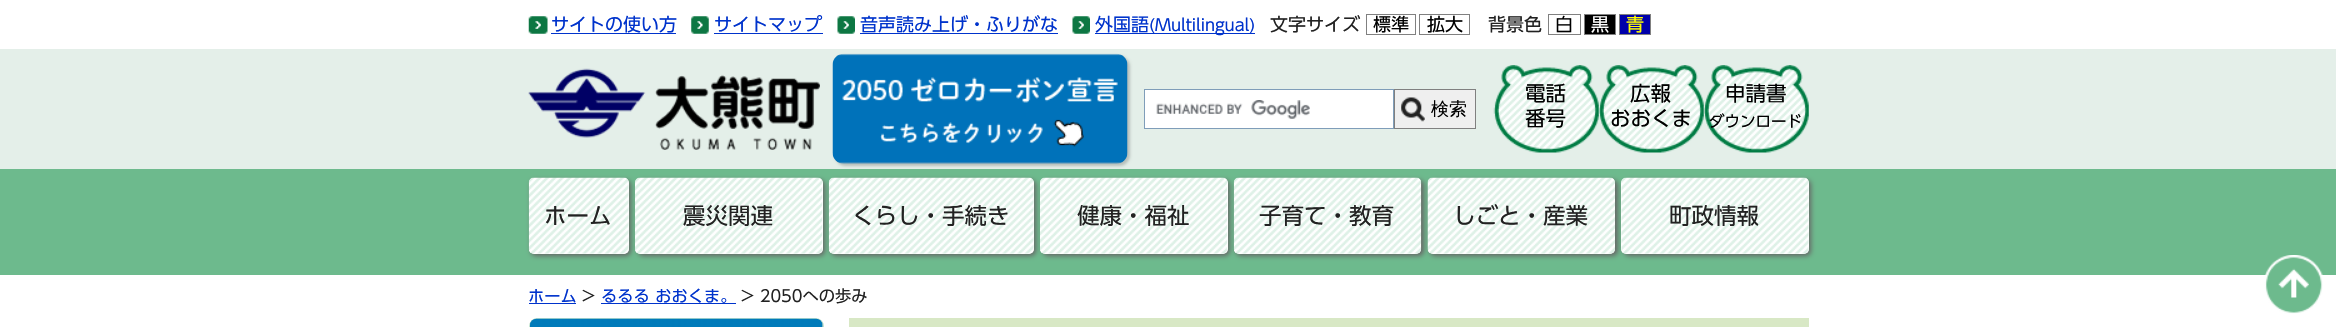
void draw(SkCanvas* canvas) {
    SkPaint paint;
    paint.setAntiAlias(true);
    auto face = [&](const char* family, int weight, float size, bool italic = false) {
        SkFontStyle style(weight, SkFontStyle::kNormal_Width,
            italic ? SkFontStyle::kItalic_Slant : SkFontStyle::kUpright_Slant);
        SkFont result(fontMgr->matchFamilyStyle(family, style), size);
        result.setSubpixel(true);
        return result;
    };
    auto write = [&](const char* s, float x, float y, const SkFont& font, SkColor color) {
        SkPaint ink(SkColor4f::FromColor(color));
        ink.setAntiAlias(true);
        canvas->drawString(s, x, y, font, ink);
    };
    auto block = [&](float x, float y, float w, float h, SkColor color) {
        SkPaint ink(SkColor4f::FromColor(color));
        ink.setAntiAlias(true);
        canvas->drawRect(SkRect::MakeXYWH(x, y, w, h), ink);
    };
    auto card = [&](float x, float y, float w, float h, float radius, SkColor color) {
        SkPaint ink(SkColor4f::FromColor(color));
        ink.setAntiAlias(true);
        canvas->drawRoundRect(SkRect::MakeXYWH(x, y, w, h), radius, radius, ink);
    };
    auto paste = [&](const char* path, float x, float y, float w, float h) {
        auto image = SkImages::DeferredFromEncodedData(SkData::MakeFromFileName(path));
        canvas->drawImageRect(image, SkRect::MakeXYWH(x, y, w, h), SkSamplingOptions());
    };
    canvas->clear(SK_ColorWHITE);
    block(0, 49, 2336, 120, SkColorSetRGB(228, 239, 233));
    paste("pic1.png", 528, 16, 20, 18);
    auto kFont1 = face("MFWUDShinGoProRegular", 400, 18);
    write("サイトの使い方", 551, 31, kFont1, SkColorSetRGB(0, 51, 204));
    block(551, 33, 125, 1, SkColorSetRGB(0, 51, 204));
    paste("pic2.png", 691, 16, 18, 18);
    write("サイトマップ", 714, 31, kFont1, SkColorSetRGB(0, 51, 204));
    block(714, 33, 109, 1, SkColorSetRGB(0, 51, 204));
    paste("pic3.png", 837, 16, 18, 18);
    write("音声読み上げ・ふりがな", 860, 31, kFont1, SkColorSetRGB(0, 51, 204));
    block(860, 33, 198, 1, SkColorSetRGB(0, 51, 204));
    paste("pic3.png", 1072, 16, 18, 18);
    write("外国語", 1095, 31, kFont1, SkColorSetRGB(0, 51, 204));
    block(1095, 33, 160, 1, SkColorSetRGB(0, 51, 204));
    auto kFont2 = face("MFWUDShinGoProRegular", 400, 16.25f);
    write("(Multilingual)", 1149, 31, kFont2, SkColorSetRGB(0, 51, 204));
    write("文字サイズ", 1270, 31, kFont1, SkColorSetRGB(34, 34, 34));
    paint.setStyle(SkPaint::kStroke_Style);
    paint.setStrokeWidth(1);
    paint.setColor(SkColorSetRGB(128, 128, 128));
    canvas->drawRect(SkRect::MakeXYWH(1366.5f, 14.5f, 49, 20), paint);
    write("標準", 1373, 31, kFont1, SK_ColorBLACK);
    canvas->drawRect(SkRect::MakeXYWH(1419.5f, 14.5f, 50, 20), paint);
    write("拡大", 1427, 31, kFont1, SK_ColorBLACK);
    write("背景色", 1488, 31, kFont1, SkColorSetRGB(34, 34, 34));
    canvas->drawRect(SkRect::MakeXYWH(1548.5f, 14.5f, 32, 20), paint);
    write("白", 1555, 31, kFont1, SK_ColorBLACK);
    paint.setStyle(SkPaint::kFill_Style);
    paint.setColor(SK_ColorBLACK);
    canvas->drawRect(SkRect::MakeXYWH(1584.5f, 14.5f, 31, 20), paint);
    paint.setStyle(SkPaint::kStroke_Style);
    paint.setColor(SkColorSetRGB(128, 128, 128));
    canvas->drawRect(SkRect::MakeXYWH(1584.5f, 14.5f, 31, 20), paint);
    write("黒", 1591, 31, kFont1, SK_ColorWHITE);
    paint.setStyle(SkPaint::kFill_Style);
    paint.setColor(SkColorSetRGB(0, 0, 170));
    canvas->drawRect(SkRect::MakeXYWH(1619.5f, 14.5f, 31, 20), paint);
    paint.setStyle(SkPaint::kStroke_Style);
    paint.setColor(SkColorSetRGB(128, 128, 128));
    canvas->drawRect(SkRect::MakeXYWH(1619.5f, 14.5f, 31, 20), paint);
    write("青", 1626, 31, kFont1, SkColorSetRGB(255, 255, 0));
    paste("pic4.png", 528, 68, 292, 82);
    block(0, 169, 2336, 106, SkColorSetRGB(109, 186, 141));
    paint.setStyle(SkPaint::kFill_Style);
    paint.setColor(SkColorSetARGB(51, 0, 0, 0));
    paint.setMaskFilter(SkMaskFilter::MakeBlur(kNormal_SkBlurStyle, 1.5f));
    canvas->drawRoundRect(SkRect::MakeXYWH(835, 56, 295, 110), 11, 11, paint);
    paint.setMaskFilter(nullptr);
    paste("pic5.png", 832, 53, 296, 111);
    block(1145, 90, 248, 38, SK_ColorWHITE);
    paste("pic6.png", 1156, 100, 154, 19);
    paint.setStyle(SkPaint::kStroke_Style);
    paint.setColor(SkColorSetRGB(127, 157, 185));
    canvas->drawRect(SkRect::MakeXYWH(1144.5f, 89.5f, 249, 39), paint);
    block(1395, 90, 80, 38, SkColorSetRGB(239, 239, 239));
    paste("pic7.png", 1401, 97, 24, 25);
    paint.setColor(SkColorSetRGB(128, 128, 128));
    canvas->drawRect(SkRect::MakeXYWH(1394.5f, 89.5f, 81, 39), paint);
    auto kFont3 = face("WenQuanYi Zen Hei", 500, 18);
    write("検索", 1431, 115, kFont3, SK_ColorBLACK);
    paste("pic8.png", 1493, 65, 106, 88);
    auto kFont4 = face("MFWUDShinGoProRegular", 400, 20.5f);
    write("電話", 1525, 101, kFont4, SK_ColorBLACK);
    write("番号", 1525, 126, kFont4, SK_ColorBLACK);
    paste("pic9.png", 1598, 65, 106, 88);
    write("広報", 1630, 101, kFont4, SK_ColorBLACK);
    write("おおくま", 1610, 126, kFont4, SK_ColorBLACK);
    paste("pic9.png", 1703, 65, 106, 88);
    write("申請書", 1725, 101, kFont4, SK_ColorBLACK);
    auto kFont5 = face("MFWUDShinGoProRegular", 400, 15.5f);
    write("ダウンロード", 1709, 127, kFont5, SK_ColorBLACK);
    paint.setStyle(SkPaint::kFill_Style);
    paint.setColor(SkColorSetRGB(102, 102, 102));
    paint.setMaskFilter(SkMaskFilter::MakeBlur(kNormal_SkBlurStyle, 2.5f));
    canvas->drawRoundRect(SkRect::MakeXYWH(531, 180, 100, 76), 5, 5, paint);
    paint.setMaskFilter(nullptr);
    card(529, 178, 100, 76, 5, SK_ColorWHITE);
    paste("pic10.png", 528, 177, 101, 77);
    auto kFont6 = face("MFWUDShinGoProRegular", 400, 22.5f);
    write("ホーム", 544, 224, kFont6, SkColorSetRGB(34, 34, 34));
    paint.setMaskFilter(SkMaskFilter::MakeBlur(kNormal_SkBlurStyle, 2.5f));
    canvas->drawRoundRect(SkRect::MakeXYWH(638, 180, 187, 76), 5, 5, paint);
    paint.setMaskFilter(nullptr);
    card(635, 178, 188, 76, 5, SK_ColorWHITE);
    paste("pic11.png", 635, 177, 188, 77);
    write("震災関連", 683, 224, kFont6, SkColorSetRGB(34, 34, 34));
    paint.setMaskFilter(SkMaskFilter::MakeBlur(kNormal_SkBlurStyle, 2.5f));
    canvas->drawRoundRect(SkRect::MakeXYWH(831, 180, 205, 76), 5, 5, paint);
    paint.setMaskFilter(nullptr);
    card(829, 178, 205, 76, 5, SK_ColorWHITE);
    paste("pic12.png", 828, 177, 206, 77);
    write("くらし・手続き", 852, 224, kFont6, SkColorSetRGB(34, 34, 34));
    paint.setMaskFilter(SkMaskFilter::MakeBlur(kNormal_SkBlurStyle, 2.5f));
    canvas->drawRoundRect(SkRect::MakeXYWH(1043, 180, 187, 76), 5, 5, paint);
    paint.setMaskFilter(nullptr);
    card(1040, 178, 188, 76, 5, SK_ColorWHITE);
    paste("pic13.png", 1040, 177, 188, 77);
    write("健康・福祉", 1077, 224, kFont6, SkColorSetRGB(34, 34, 34));
    paint.setMaskFilter(SkMaskFilter::MakeBlur(kNormal_SkBlurStyle, 2.5f));
    canvas->drawRoundRect(SkRect::MakeXYWH(1236, 180, 188, 76), 5, 5, paint);
    paint.setMaskFilter(nullptr);
    card(1234, 178, 187, 76, 5, SK_ColorWHITE);
    paste("pic14.png", 1233, 177, 189, 77);
    write("子育て・教育", 1259, 224, kFont6, SkColorSetRGB(34, 34, 34));
    paint.setMaskFilter(SkMaskFilter::MakeBlur(kNormal_SkBlurStyle, 2.5f));
    canvas->drawRoundRect(SkRect::MakeXYWH(1430, 180, 188, 76), 5, 5, paint);
    paint.setMaskFilter(nullptr);
    card(1428, 178, 187, 76, 5, SK_ColorWHITE);
    paste("pic15.png", 1427, 177, 188, 77);
    write("しごと・産業", 1453, 224, kFont6, SkColorSetRGB(34, 34, 34));
    paint.setMaskFilter(SkMaskFilter::MakeBlur(kNormal_SkBlurStyle, 2.5f));
    canvas->drawRoundRect(SkRect::MakeXYWH(1624, 180, 187, 76), 5, 5, paint);
    paint.setMaskFilter(nullptr);
    card(1621, 178, 188, 76, 5, SK_ColorWHITE);
    paste("pic16.png", 1621, 177, 188, 77);
    write("町政情報", 1669, 224, kFont6, SkColorSetRGB(34, 34, 34));
    write("ホーム", 528, 302, kFont2, SkColorSetRGB(0, 51, 204));
    block(529, 303, 47, 1, SkColorSetRGB(0, 51, 204));
    write(">", 582, 302, kFont2, SkColorSetRGB(34, 34, 34));
    write("るるる おおくま。", 601, 302, kFont2, SkColorSetRGB(0, 51, 204));
    block(601, 303, 135, 1, SkColorSetRGB(0, 51, 204));
    write("> 2050への歩み", 741, 302, kFont2, SkColorSetRGB(34, 34, 34));
    paint.setColor(SkColorSetRGB(248, 243, 209));
    canvas->drawRoundRect(SkRect::MakeXYWH(529.5f, 318.5f, 294, 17), 7.5f, 7.5f, paint);
    paint.setStyle(SkPaint::kStroke_Style);
    paint.setColor(SkColorSetRGB(195, 227, 208));
    canvas->drawRoundRect(SkRect::MakeXYWH(529.5f, 318.5f, 294, 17), 7.5f, 7.5f, paint);
    paste("pic17.png", 530, 318, 293, 9);
    block(849, 318, 960, 9, SkColorSetRGB(216, 232, 197));
    paste("pic18.png", 2264, 255, 59, 59);
}
